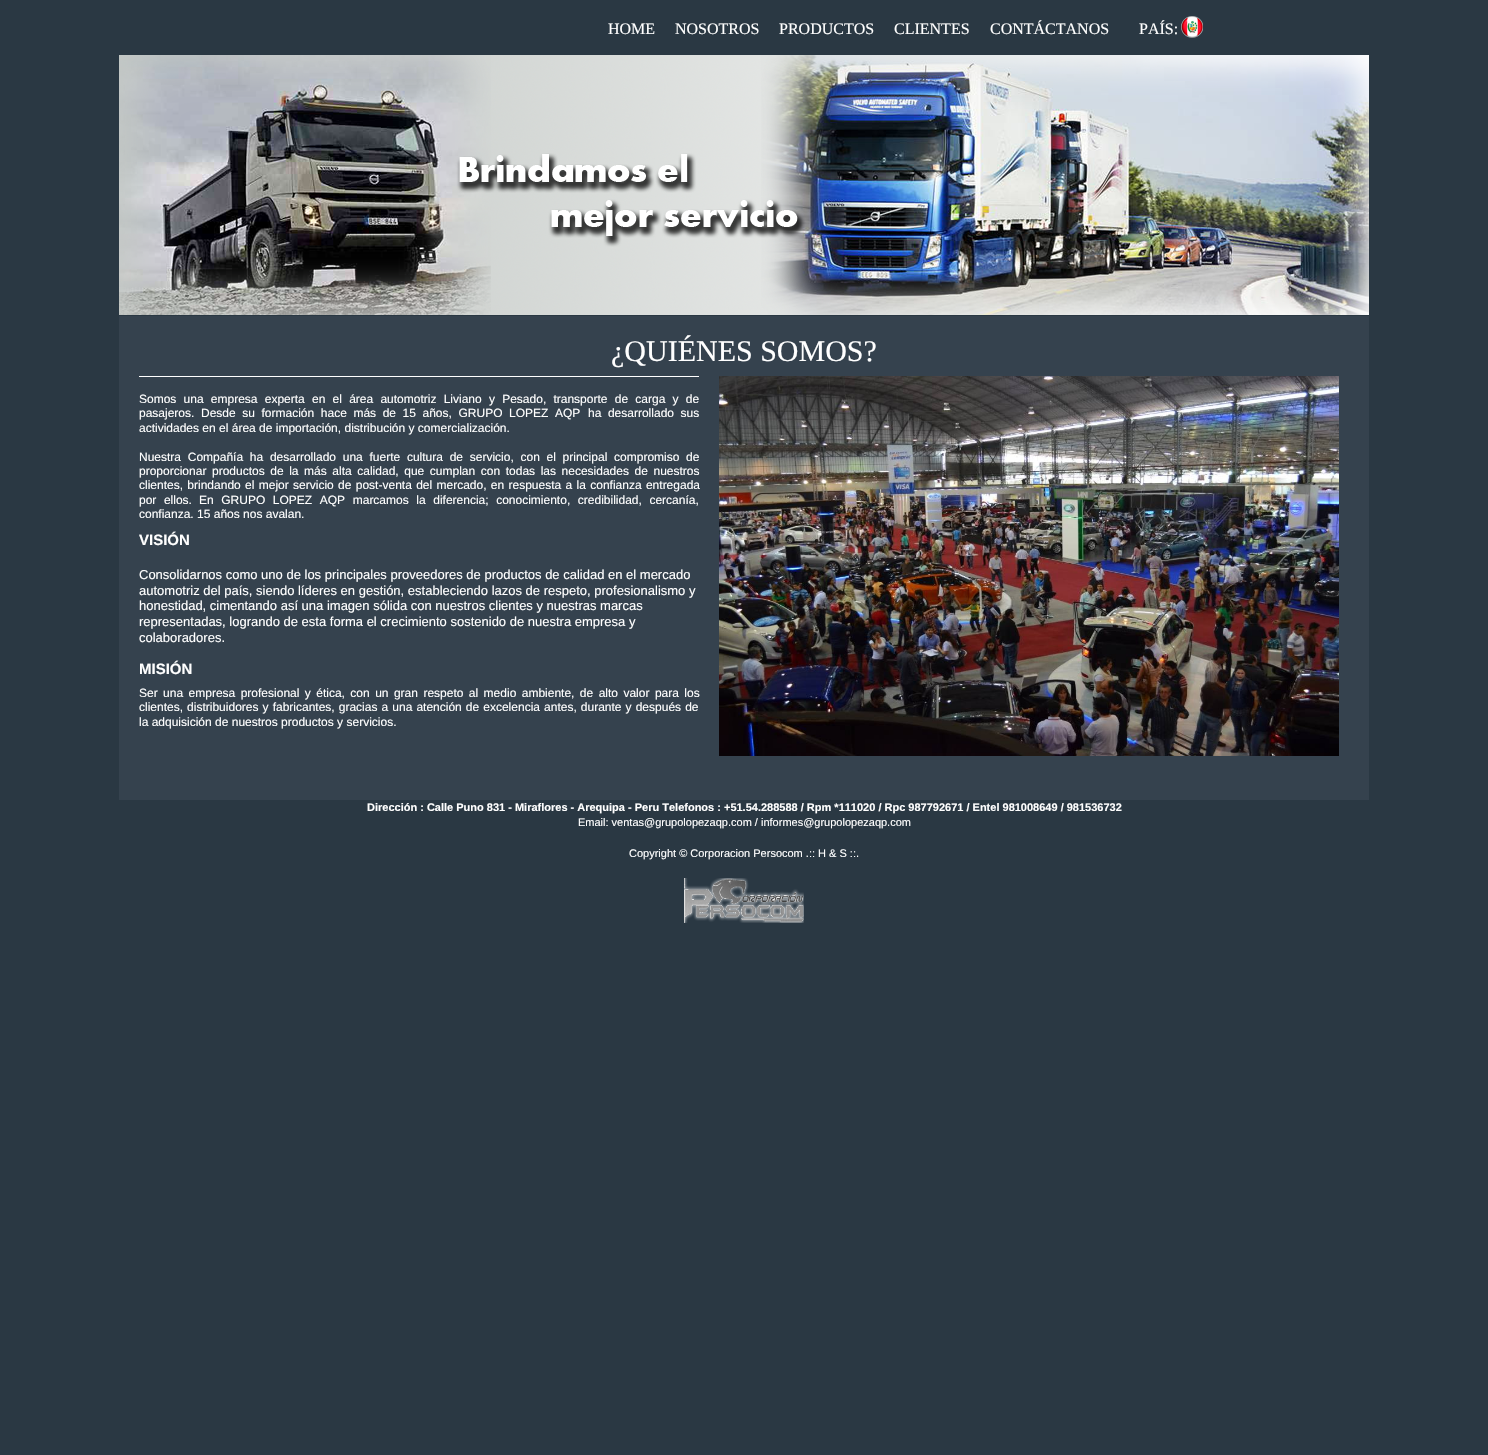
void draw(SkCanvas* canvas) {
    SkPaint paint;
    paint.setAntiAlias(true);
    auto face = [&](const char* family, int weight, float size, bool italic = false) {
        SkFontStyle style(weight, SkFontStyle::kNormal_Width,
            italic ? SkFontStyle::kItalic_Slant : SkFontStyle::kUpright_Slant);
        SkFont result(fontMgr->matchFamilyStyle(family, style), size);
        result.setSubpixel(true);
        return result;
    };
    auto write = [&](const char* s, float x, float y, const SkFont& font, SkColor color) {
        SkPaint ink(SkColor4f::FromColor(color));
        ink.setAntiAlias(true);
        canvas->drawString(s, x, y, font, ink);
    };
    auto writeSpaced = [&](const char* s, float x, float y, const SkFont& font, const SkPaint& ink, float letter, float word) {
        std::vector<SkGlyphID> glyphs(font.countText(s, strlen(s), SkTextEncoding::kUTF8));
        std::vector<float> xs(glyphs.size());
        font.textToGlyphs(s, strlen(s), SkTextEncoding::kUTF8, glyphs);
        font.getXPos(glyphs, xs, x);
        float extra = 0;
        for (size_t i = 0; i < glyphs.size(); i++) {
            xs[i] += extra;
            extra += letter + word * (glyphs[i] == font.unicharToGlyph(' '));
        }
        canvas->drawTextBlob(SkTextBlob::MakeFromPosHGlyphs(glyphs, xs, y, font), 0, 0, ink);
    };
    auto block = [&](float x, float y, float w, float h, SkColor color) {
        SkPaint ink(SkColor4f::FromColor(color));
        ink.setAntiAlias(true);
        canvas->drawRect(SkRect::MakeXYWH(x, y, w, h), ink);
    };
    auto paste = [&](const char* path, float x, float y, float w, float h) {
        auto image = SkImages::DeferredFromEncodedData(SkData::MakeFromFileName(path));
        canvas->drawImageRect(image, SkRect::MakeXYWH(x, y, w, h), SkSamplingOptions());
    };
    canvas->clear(SkColorSetRGB(42, 56, 67));
    auto kFont1 = face("Liberation Serif", 400, 16);
    write("HOME", 608, 34, kFont1, SK_ColorWHITE);
    write("NOSOTROS", 675, 34, kFont1, SK_ColorWHITE);
    write("PRODUCTOS", 779, 34, kFont1, SK_ColorWHITE);
    write("CLIENTES", 894, 34, kFont1, SK_ColorWHITE);
    write("CONTÁCTANOS", 990, 34, kFont1, SK_ColorWHITE);
    paste("pic1.png", 1181, 16, 22, 22);
    write("PAÍS:", 1139, 34, kFont1, SK_ColorWHITE);
    paste("pic2.png", 119, 55, 1250, 260);
    block(119, 316, 1250, 484, SkColorSetRGB(53, 66, 78));
    auto kFont2 = face("Liberation Serif", 400, 30);
    write("¿QUIÉNES SOMOS?", 611, 361, kFont2, SK_ColorWHITE);
    block(139, 376, 560, 1, SK_ColorWHITE);
    auto kFont3 = face("Liberation Sans", 400, 12);
    paint.setColor(SK_ColorWHITE);
    writeSpaced("Somos una empresa experta en el área automotriz Liviano y Pesado, transporte de carga y de", 139, 403, kFont3, paint, 0, 3.9f);
    write("pasajeros.", 139, 417, kFont3, SK_ColorWHITE);
    writeSpaced("Desde su formación hace más de 15 años, GRUPO LOPEZ AQP", 201, 417, kFont3, paint, 0, 3.25f);
    writeSpaced("ha desarrollado sus", 588, 417, kFont3, paint, 0, 3.25f);
    write("actividades en el área de importación, distribución y comercialización.", 139, 432, kFont3, SK_ColorWHITE);
    writeSpaced("Nuestra Compañía ha desarrollado una fuerte cultura de servicio, con el principal compromiso de", 139, 461, kFont3, paint, 0, 3.4f);
    writeSpaced("proporcionar productos de la más alta calidad, que cumplan con todas las necesidades de nuestros", 139, 475, kFont3, paint, 0, 2.25f);
    writeSpaced("clientes, brindando el mejor servicio de post-venta del mercado, en respuesta a la confianza entregada", 139, 489, kFont3, paint, 0, 1);
    writeSpaced("por ellos.", 139, 504, kFont3, paint, 0, 4.25f);
    writeSpaced("En GRUPO LOPEZ AQP marcamos la diferencia; conocimiento, credibilidad, cercanía,", 199, 504, kFont3, paint, 0, 4.25f);
    write("confianza. 15 años nos avalan.", 139, 518, kFont3, SK_ColorWHITE);
    auto kFont4 = face("Liberation Sans", 700, 15);
    write("VISIÓN", 139, 545, kFont4, SK_ColorWHITE);
    auto kFont5 = face("Liberation Sans", 400, 13);
    write("Consolidarnos como uno de los principales proveedores de productos de calidad en el mercado", 139, 579, kFont5, SK_ColorWHITE);
    write("automotriz del país, siendo líderes en gestión, estableciendo lazos de respeto, profesionalismo y", 139, 595, kFont5, SK_ColorWHITE);
    write("honestidad, cimentando así una imagen sólida con nuestros clientes y nuestras marcas", 139, 610, kFont5, SK_ColorWHITE);
    write("representadas, logrando de esta forma el crecimiento sostenido de nuestra empresa y", 139, 626, kFont5, SK_ColorWHITE);
    write("colaboradores.", 139, 642, kFont5, SK_ColorWHITE);
    write("MISIÓN", 139, 674, kFont4, SK_ColorWHITE);
    writeSpaced("Ser una empresa profesional y ética, con un gran respeto al medio ambiente, de alto valor para los", 139, 697, kFont3, paint, 0, 2.1f);
    writeSpaced("clientes, distribuidores y fabricantes, gracias a una atención de excelencia antes, durante y después de", 139, 711, kFont3, paint, 0, 0.75f);
    write("la adquisición de nuestros productos y servicios.", 139, 726, kFont3, SK_ColorWHITE);
    paste("pic3.png", 719, 376, 620, 380);
    auto kFont6 = face("Liberation Sans", 700, 11);
    write("Dirección : Calle Puno 831 - Miraflores - Arequipa - Peru Telefonos : +51.54.288588 / Rpm *111020 / Rpc 987792671 / Entel 981008649 / 981536732", 367, 811, kFont6, SK_ColorWHITE);
    auto kFont7 = face("Liberation Sans", 400, 11);
    write("Email: ventas@grupolopezaqp.com / informes@grupolopezaqp.com", 578, 826, kFont7, SK_ColorWHITE);
    write("Copyright © Corporacion Persocom .:: H & S ::.", 629, 857, kFont7, SK_ColorWHITE);
    paste("pic4.png", 684, 878, 120, 45);
}
